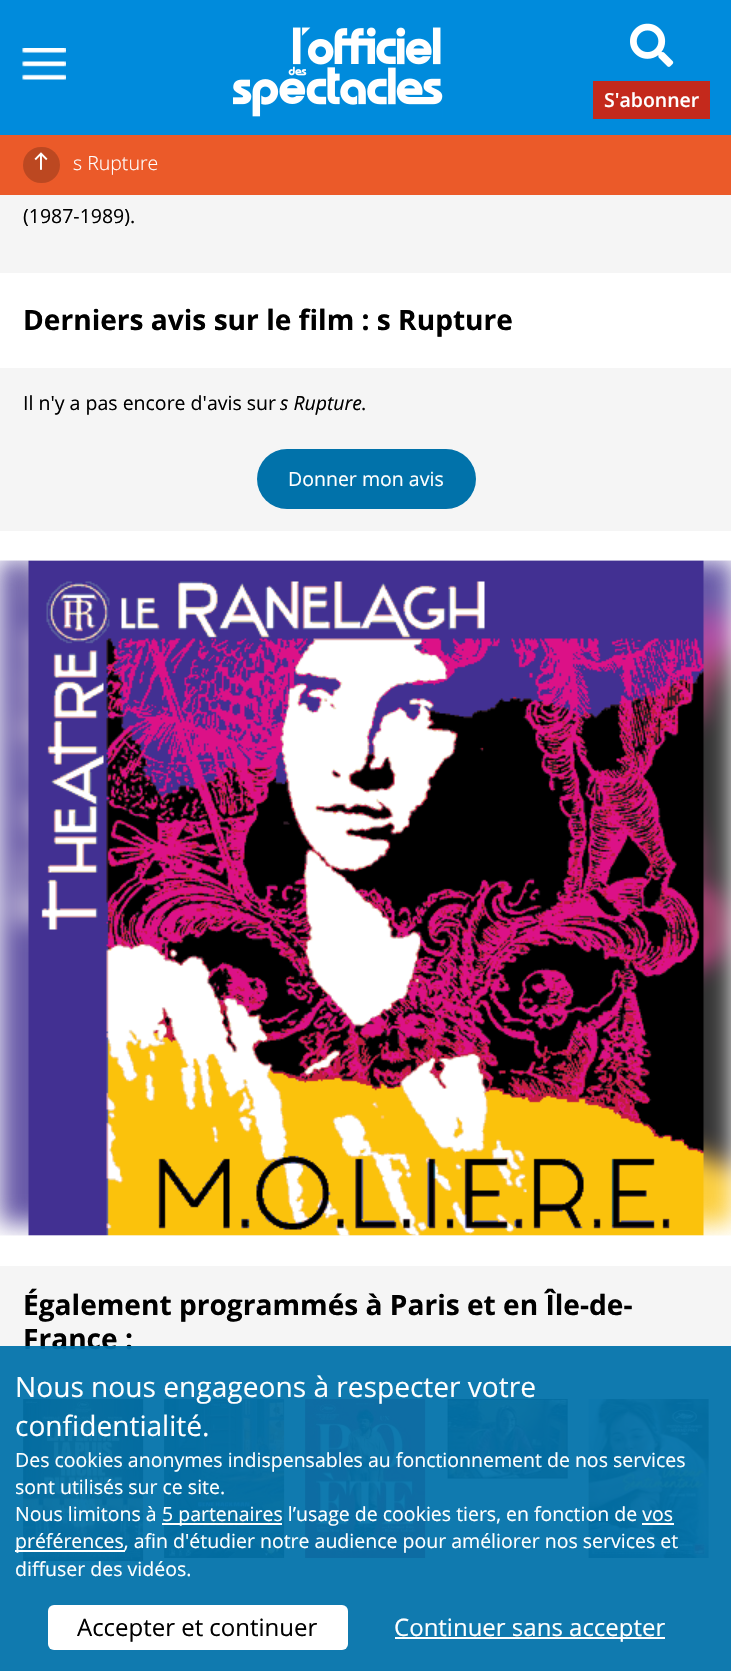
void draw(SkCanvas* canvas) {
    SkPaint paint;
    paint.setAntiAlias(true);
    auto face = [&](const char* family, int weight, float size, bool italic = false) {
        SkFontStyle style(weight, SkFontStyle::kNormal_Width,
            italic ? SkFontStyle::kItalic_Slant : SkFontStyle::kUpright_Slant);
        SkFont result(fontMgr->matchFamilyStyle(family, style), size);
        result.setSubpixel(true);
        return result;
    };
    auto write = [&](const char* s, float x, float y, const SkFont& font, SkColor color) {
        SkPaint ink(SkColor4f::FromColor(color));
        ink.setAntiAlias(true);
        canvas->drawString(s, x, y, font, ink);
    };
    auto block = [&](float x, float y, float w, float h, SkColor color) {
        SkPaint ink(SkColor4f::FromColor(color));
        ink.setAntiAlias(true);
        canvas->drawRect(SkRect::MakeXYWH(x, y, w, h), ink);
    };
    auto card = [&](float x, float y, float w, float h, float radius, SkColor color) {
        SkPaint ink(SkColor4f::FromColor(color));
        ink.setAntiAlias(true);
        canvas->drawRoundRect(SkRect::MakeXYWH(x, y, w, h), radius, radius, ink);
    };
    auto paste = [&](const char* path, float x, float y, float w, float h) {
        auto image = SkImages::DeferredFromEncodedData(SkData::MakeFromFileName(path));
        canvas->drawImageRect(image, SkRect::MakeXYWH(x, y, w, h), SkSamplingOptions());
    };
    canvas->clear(SK_ColorWHITE);
    block(0, 0, 731, 135, SkColorSetRGB(0, 139, 220));
    paste("pic1.png", 22, 48, 44, 32);
    paste("pic2.png", 233, 27, 210, 90);
    paste("pic3.png", 630, 23, 44, 44);
    block(593, 81, 117, 38, SkColorSetRGB(196, 41, 28));
    auto kFont1 = face("Open Sans", 600, 19.5f);
    write("S'abonner", 604, 107, kFont1, SK_ColorWHITE);
    block(0, 135, 731, 60, SkColorSetRGB(235, 90, 41));
    card(23, 147, 37, 36, 18, SkColorSetRGB(188, 72, 33));
    paste("pic4.png", 34, 152, 14, 18);
    auto kFont2 = face("Open Sans", 300, 19.5f);
    write("s Rupture", 73, 170, kFont2, SK_ColorWHITE);
    block(0, 195, 731, 78, SkColorSetRGB(245, 245, 245));
    auto kFont3 = face("Open Sans", 400, 19.5f);
    write("(1987-1989).", 23, 223, kFont3, SK_ColorBLACK);
    auto kFont4 = face("Open Sans", 700, 28.1f);
    write("Derniers avis sur le film : s Rupture", 23, 330, kFont4, SK_ColorBLACK);
    block(0, 368, 731, 163, SkColorSetRGB(245, 245, 245));
    write("Il n'y a pas encore d'avis sur", 23, 410, kFont3, SK_ColorBLACK);
    auto kFont5 = face("Open Sans", 400, 19.5f, true);
    write("s Rupture", 280, 410, kFont5, SK_ColorBLACK);
    write(".", 361, 410, kFont3, SK_ColorBLACK);
    card(257, 449, 219, 60, 30, SkColorSetRGB(1, 114, 170));
    write("Donner mon avis", 288, 486, kFont3, SK_ColorWHITE);
    paste("pic5.png", 0, 560, 731, 676);
    paste("pic6.png", 28, 560, 676, 676);
    block(0, 1266, 731, 405, SkColorSetRGB(245, 245, 245));
    write("Également programmés à Paris et en Île-de-", 23, 1315, kFont4, SK_ColorBLACK);
    write("France :", 23, 1349, kFont4, SK_ColorBLACK);
    paste("pic7.png", 23, 1399, 121, 162);
    paste("pic8.png", 164, 1399, 121, 159);
    paste("pic9.png", 305, 1399, 121, 159);
    paste("pic10.png", 447, 1399, 121, 80);
    paste("pic11.png", 588, 1399, 121, 159);
    block(0, 1346, 731, 325, SkColorSetARGB(240, 1, 114, 170));
    auto kFont6 = face("Open Sans", 400, 28.1f);
    write("Nous nous engageons à respecter votre", 15, 1397, kFont6, SK_ColorWHITE);
    write("confidentialité.", 15, 1436, kFont6, SK_ColorWHITE);
    write("Des cookies anonymes indispensables au fonctionnement de nos services", 15, 1467, kFont3, SK_ColorWHITE);
    write("sont utilisés sur ce site.", 15, 1494, kFont3, SK_ColorWHITE);
    write("Nous limitons à", 15, 1521, kFont3, SK_ColorWHITE);
    block(162, 1523, 120, 2, SK_ColorWHITE);
    write("5 partenaires l’usage de cookies tiers, en fonction de vos", 162, 1521, kFont3, SK_ColorWHITE);
    block(15, 1550, 110, 2, SK_ColorWHITE);
    write("préférences, afin d'étudier notre audience pour améliorer nos services et", 15, 1548, kFont3, SK_ColorWHITE);
    block(642, 1523, 32, 2, SK_ColorWHITE);
    write("diffuser des vidéos.", 15, 1576, kFont3, SK_ColorWHITE);
    card(48, 1605, 300, 45, 6, SK_ColorWHITE);
    auto kFont7 = face("Open Sans", 400, 24);
    write("Accepter et continuer", 77, 1636, kFont7, SK_ColorBLACK);
    block(395, 1637, 270, 2, SK_ColorWHITE);
    write("Continuer sans accepter", 394, 1636, kFont7, SK_ColorWHITE);
}
